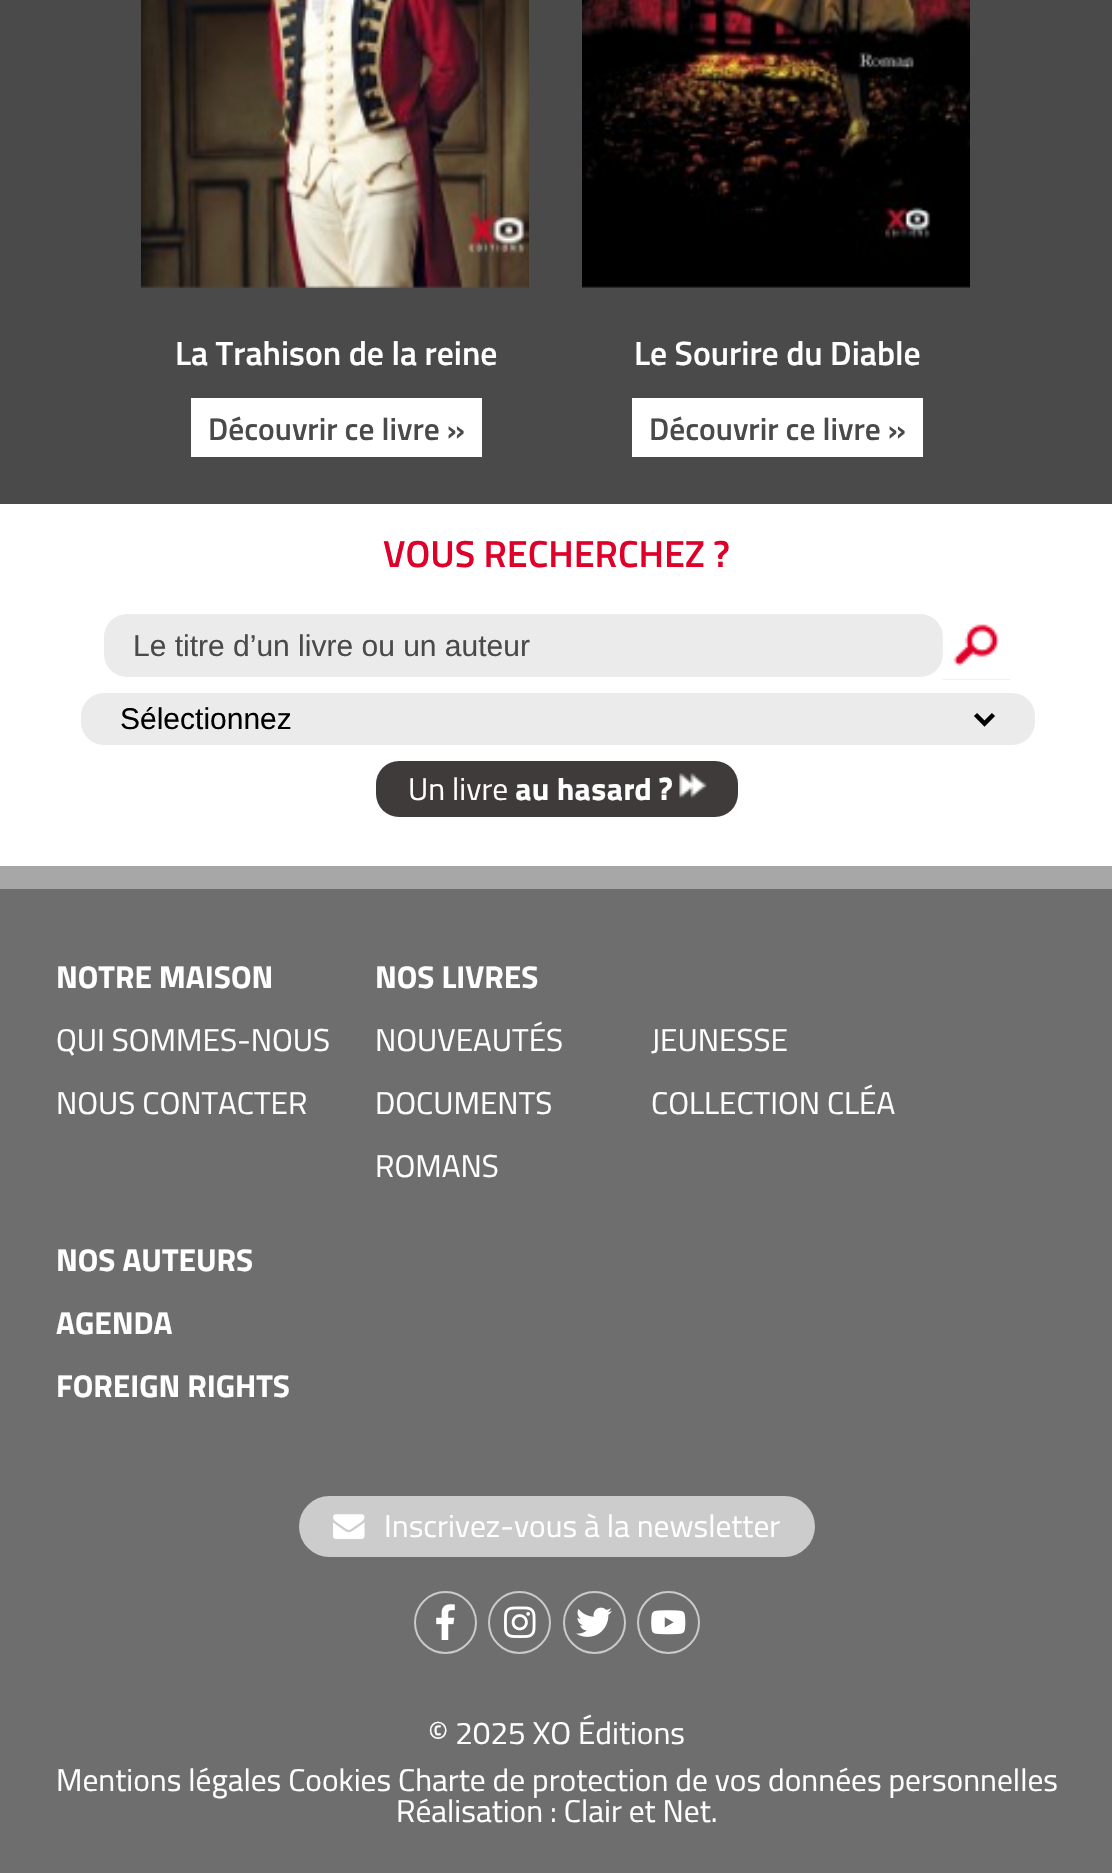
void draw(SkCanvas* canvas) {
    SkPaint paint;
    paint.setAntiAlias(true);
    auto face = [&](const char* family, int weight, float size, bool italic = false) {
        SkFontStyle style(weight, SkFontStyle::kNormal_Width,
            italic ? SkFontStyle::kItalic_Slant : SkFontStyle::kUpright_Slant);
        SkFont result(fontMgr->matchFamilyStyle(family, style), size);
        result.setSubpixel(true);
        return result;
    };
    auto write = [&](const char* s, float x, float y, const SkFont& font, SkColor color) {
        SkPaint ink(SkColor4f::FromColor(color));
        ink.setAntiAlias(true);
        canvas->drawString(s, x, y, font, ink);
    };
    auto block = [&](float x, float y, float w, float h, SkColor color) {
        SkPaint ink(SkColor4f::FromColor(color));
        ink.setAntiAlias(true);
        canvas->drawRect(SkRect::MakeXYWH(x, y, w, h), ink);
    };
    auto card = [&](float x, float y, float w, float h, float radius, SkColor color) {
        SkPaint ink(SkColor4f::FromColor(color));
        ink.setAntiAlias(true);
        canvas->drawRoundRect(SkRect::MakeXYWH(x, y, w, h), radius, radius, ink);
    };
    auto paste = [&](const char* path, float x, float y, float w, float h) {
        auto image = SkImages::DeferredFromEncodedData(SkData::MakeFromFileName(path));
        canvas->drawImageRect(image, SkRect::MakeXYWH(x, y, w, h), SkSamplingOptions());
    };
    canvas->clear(SK_ColorWHITE);
    block(0, 0, 1112, 504, SkColorSetRGB(74, 74, 74));
    paste("pic1.png", 141, 0, 388, 288);
    auto kFont1 = face("Titillium Web", 600, 33.75f);
    write("La Trahison de la reine", 175, 365, kFont1, SK_ColorWHITE);
    block(191, 398, 291, 59, SK_ColorWHITE);
    auto kFont2 = face("Titillium Web", 600, 31.5f);
    write("Découvrir ce livre »", 208, 440, kFont2, SkColorSetRGB(74, 74, 74));
    paste("pic2.png", 582, 0, 388, 288);
    write("Le Sourire du Diable", 634, 365, kFont1, SK_ColorWHITE);
    block(632, 398, 291, 59, SK_ColorWHITE);
    write("Découvrir ce livre »", 649, 440, kFont2, SkColorSetRGB(74, 74, 74));
    block(0, 866, 1112, 23, SkColorSetRGB(167, 167, 167));
    auto kFont3 = face("Titillium Web", 600, 37.75f);
    write("VOUS RECHERCHEZ ?", 383, 567, kFont3, SkColorSetRGB(222, 0, 41));
    card(104, 614, 839, 63, 23, SkColorSetRGB(235, 235, 235));
    auto kFont4 = face("Liberation Sans", 400, 30);
    write("Le titre d’un livre ou un auteur", 133, 656, kFont4, SkColorSetRGB(74, 74, 74));
    block(943, 679, 67, 1, SkColorSetRGB(239, 239, 239));
    paste("pic3.png", 942, 612, 68, 67);
    card(81, 693, 954, 52, 23, SkColorSetRGB(235, 235, 235));
    paint.setStyle(SkPaint::kStroke_Style);
    paint.setStrokeWidth(4.5f);
    paint.setColor(SK_ColorBLACK);
    canvas->drawPath(SkPathBuilder().moveTo(975.5f, 714.5f).lineTo(984.5f, 723.5f).lineTo(993.5f, 714.5f).detach(), paint);
    write("Sélectionnez", 120, 729, kFont4, SK_ColorBLACK);
    card(376, 761, 362, 56, 23, SkColorSetRGB(63, 59, 59));
    auto kFont5 = face("Titillium Web", 400, 31.5f);
    write("Un livre", 408, 800, kFont5, SK_ColorWHITE);
    auto kFont6 = face("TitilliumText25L", 900, 31.5f);
    write("au hasard ?", 515, 800, kFont6, SK_ColorWHITE);
    paste("pic4.png", 679, 773, 28, 26);
    block(0, 889, 1112, 984, SkColorSetRGB(110, 110, 110));
    auto kFont7 = face("Titillium Web", 700, 31.5f);
    write("NOTRE MAISON", 56, 988, kFont7, SK_ColorWHITE);
    write("QUI SOMMES-NOUS", 56, 1051, kFont5, SK_ColorWHITE);
    write("NOUS CONTACTER", 56, 1114, kFont5, SK_ColorWHITE);
    write("NOS LIVRES", 375, 988, kFont7, SK_ColorWHITE);
    write("NOUVEAUTÉS", 375, 1051, kFont5, SK_ColorWHITE);
    write("JEUNESSE", 651, 1051, kFont5, SK_ColorWHITE);
    write("DOCUMENTS", 375, 1114, kFont5, SK_ColorWHITE);
    write("COLLECTION CLÉA", 651, 1114, kFont5, SK_ColorWHITE);
    write("ROMANS", 375, 1177, kFont5, SK_ColorWHITE);
    write("NOS AUTEURS", 56, 1271, kFont7, SK_ColorWHITE);
    write("AGENDA", 56, 1334, kFont7, SK_ColorWHITE);
    write("FOREIGN RIGHTS", 56, 1397, kFont7, SK_ColorWHITE);
    card(299, 1496, 516, 61, 30.5f, SkColorSetRGB(204, 204, 204));
    paste("pic5.png", 333, 1514, 32, 25);
    write("Inscrivez-vous à la newsletter", 384, 1537, kFont5, SK_ColorWHITE);
    paint.setStrokeWidth(2);
    paint.setColor(SkColorSetRGB(202, 202, 202));
    canvas->drawCircle(445.5f, 1622.5f, 30.5f, paint);
    paste("pic6.png", 436, 1604, 19, 36);
    canvas->drawCircle(519.5f, 1622.5f, 30.5f, paint);
    paste("pic7.png", 504, 1606, 32, 32);
    canvas->drawCircle(594.5f, 1622.5f, 30.5f, paint);
    paste("pic8.png", 576, 1607, 36, 30);
    canvas->drawCircle(668.5f, 1622.5f, 30.5f, paint);
    paste("pic9.png", 651, 1610, 35, 25);
    write("© 2025 XO Éditions", 428, 1744, kFont5, SK_ColorWHITE);
    write("Mentions légales Cookies Charte de protection de vos données personnelles", 56, 1791, kFont5, SK_ColorWHITE);
    write("Réalisation : Clair et Net.", 396, 1822, kFont5, SK_ColorWHITE);
}
